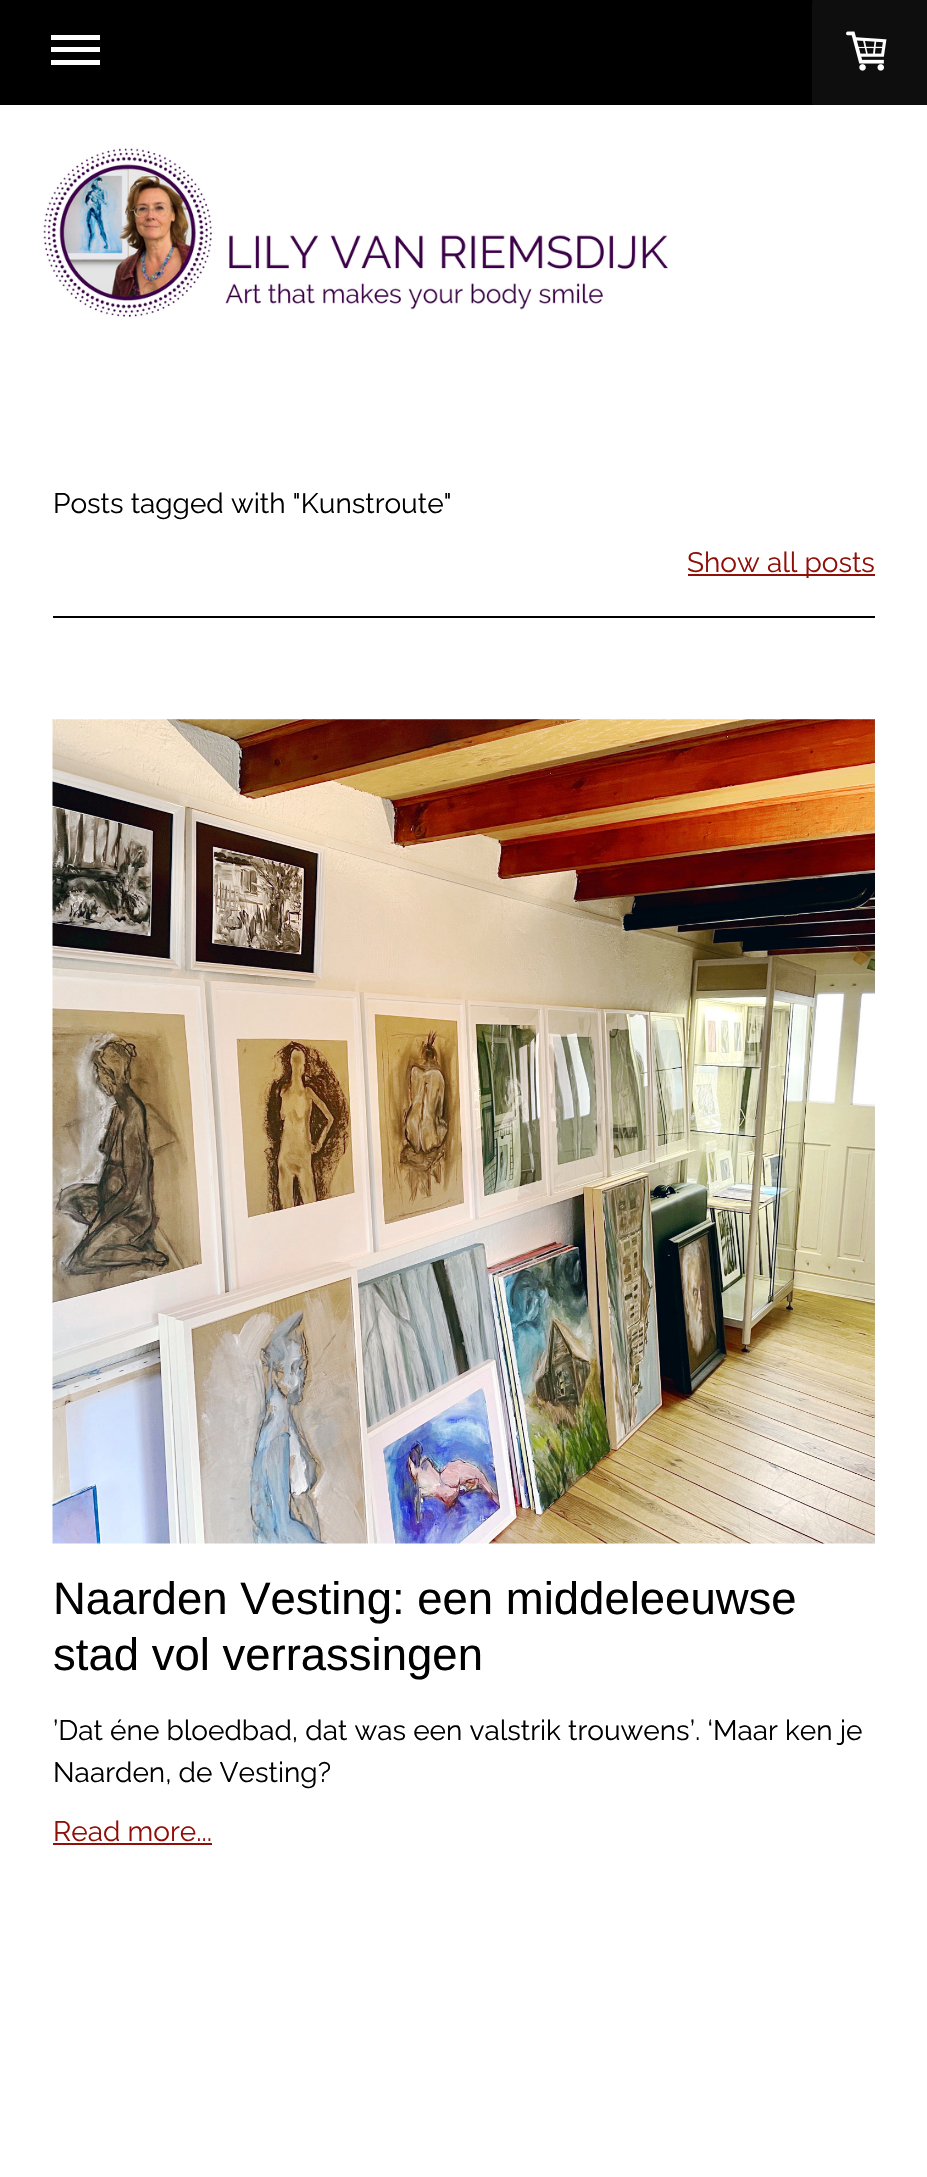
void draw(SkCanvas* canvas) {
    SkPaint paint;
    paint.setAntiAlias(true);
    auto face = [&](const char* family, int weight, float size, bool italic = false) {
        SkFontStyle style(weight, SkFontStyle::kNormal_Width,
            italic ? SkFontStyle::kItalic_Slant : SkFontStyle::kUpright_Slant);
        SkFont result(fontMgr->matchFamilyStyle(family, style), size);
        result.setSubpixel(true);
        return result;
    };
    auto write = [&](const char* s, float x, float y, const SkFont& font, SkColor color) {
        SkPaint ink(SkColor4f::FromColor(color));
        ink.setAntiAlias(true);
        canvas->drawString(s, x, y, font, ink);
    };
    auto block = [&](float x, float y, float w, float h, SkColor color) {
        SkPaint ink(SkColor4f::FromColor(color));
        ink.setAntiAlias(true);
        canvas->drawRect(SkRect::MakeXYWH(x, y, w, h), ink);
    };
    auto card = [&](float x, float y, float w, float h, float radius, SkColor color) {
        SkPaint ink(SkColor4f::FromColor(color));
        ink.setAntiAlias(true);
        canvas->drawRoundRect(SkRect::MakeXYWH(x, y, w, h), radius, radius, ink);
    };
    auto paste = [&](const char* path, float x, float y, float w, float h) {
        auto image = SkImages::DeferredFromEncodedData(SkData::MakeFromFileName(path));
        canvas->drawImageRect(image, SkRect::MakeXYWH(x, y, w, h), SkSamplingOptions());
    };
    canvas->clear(SK_ColorWHITE);
    block(0, 0, 927, 105, SK_ColorBLACK);
    block(51, 47, 49, 5, SK_ColorWHITE);
    block(51, 35, 49, 5, SK_ColorWHITE);
    block(51, 60, 49, 5, SK_ColorWHITE);
    card(812, 0, 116, 105, 2, SkColorSetRGB(14, 14, 14));
    paste("pic1.png", 846, 31, 41, 40);
    paste("pic2.png", 43, 148, 626, 169);
    auto kFont1 = face("Raleway", 100, 28);
    write("Posts tagged with \"Kunstroute\"", 53, 513, kFont1, SK_ColorBLACK);
    block(688, 574, 187, 2, SkColorSetRGB(143, 16, 8));
    write("Show all posts", 687, 572, kFont1, SkColorSetRGB(143, 16, 8));
    block(53, 616, 822, 2, SK_ColorBLACK);
    paste("pic3.png", 52, 719, 823, 825);
    auto kFont2 = face("Arimo", 400, 45.5f);
    write("Naarden Vesting: een middeleeuwse", 53, 1614, kFont2, SK_ColorBLACK);
    write("stad vol verrassingen", 53, 1670, kFont2, SK_ColorBLACK);
    write("’Dat éne bloedbad, dat was een valstrik trouwens’. ‘Maar ken je", 53, 1740, kFont1, SK_ColorBLACK);
    write("Naarden, de Vesting?", 53, 1782, kFont1, SK_ColorBLACK);
    write("Read more...", 53, 1841, kFont1, SkColorSetRGB(143, 16, 8));
    block(53, 1843, 159, 2, SkColorSetRGB(143, 16, 8));
}
